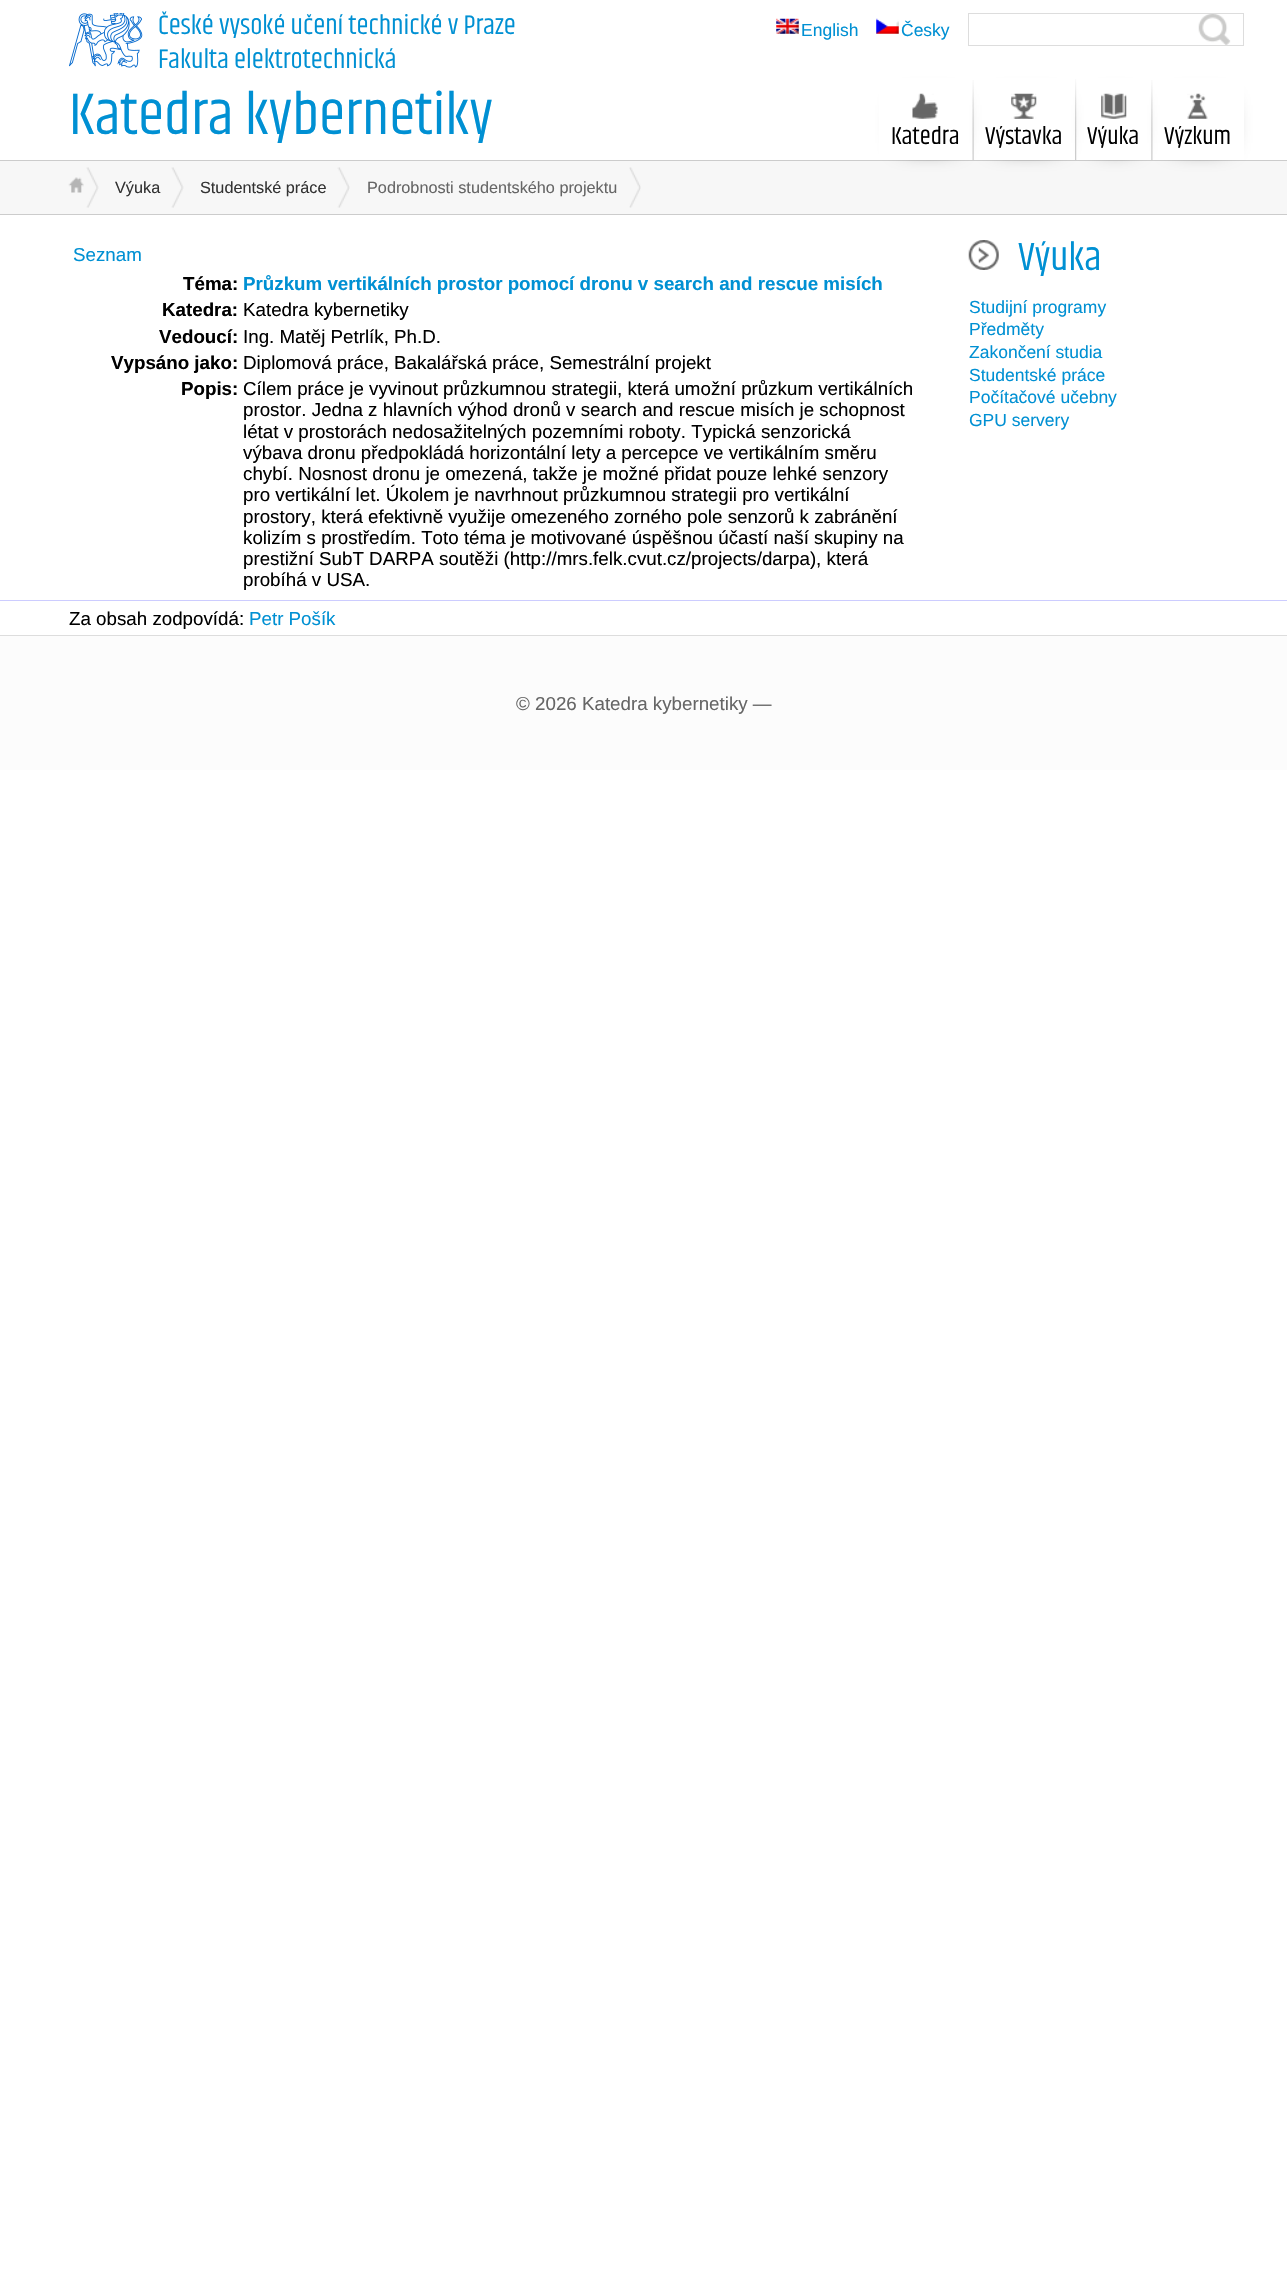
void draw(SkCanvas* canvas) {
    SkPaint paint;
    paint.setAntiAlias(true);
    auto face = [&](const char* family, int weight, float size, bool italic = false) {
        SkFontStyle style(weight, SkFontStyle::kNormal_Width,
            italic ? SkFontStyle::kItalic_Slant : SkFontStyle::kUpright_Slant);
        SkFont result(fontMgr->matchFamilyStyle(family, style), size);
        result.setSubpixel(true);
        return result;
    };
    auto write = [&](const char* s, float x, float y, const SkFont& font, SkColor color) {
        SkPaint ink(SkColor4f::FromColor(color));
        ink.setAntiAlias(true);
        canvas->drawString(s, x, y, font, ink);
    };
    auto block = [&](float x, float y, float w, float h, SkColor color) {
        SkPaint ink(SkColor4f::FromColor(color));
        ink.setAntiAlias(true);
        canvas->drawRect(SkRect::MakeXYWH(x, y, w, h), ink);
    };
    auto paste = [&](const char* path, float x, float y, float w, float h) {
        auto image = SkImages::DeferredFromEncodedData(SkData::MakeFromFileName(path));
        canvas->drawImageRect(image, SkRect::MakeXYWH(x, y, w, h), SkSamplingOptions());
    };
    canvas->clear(SK_ColorWHITE);
    paste("pic1.png", 69, 13, 74, 55);
    auto kFont1 = face("Khand", 400, 27.5f);
    write("České vysoké učení technické v Praze", 158, 34, kFont1, SkColorSetRGB(0, 144, 211));
    write("Fakulta elektrotechnická", 158, 68, kFont1, SkColorSetRGB(0, 144, 211));
    auto kFont2 = face("Khand", 400, 60);
    write("Katedra kybernetiky", 69, 134, kFont2, SkColorSetRGB(0, 144, 211));
    paste("pic2.png", 776, 18, 23, 16);
    auto kFont3 = face("Liberation Sans", 400, 17.5f);
    write("English", 801, 36, kFont3, SkColorSetRGB(0, 144, 211));
    paste("pic3.png", 876, 18, 23, 16);
    write("Česky", 901, 36, kFont3, SkColorSetRGB(0, 144, 211));
    paste("pic4.png", 1198, 14, 33, 31);
    paint.setStyle(SkPaint::kStroke_Style);
    paint.setStrokeWidth(1);
    paint.setColor(SkColorSetRGB(221, 221, 221));
    canvas->drawRect(SkRect::MakeXYWH(968.5f, 13.5f, 275, 32), paint);
    block(0, 161, 1287, 53, SkColorSetRGB(247, 247, 247));
    block(0, 160, 1287, 1, SkColorSetRGB(204, 204, 204));
    canvas->save();
    canvas->clipPath(SkPathBuilder(SkPathFillType::kEvenOdd).moveTo(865, 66).lineTo(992, 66).lineTo(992, 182).lineTo(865, 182).close().moveTo(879, 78).lineTo(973, 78).lineTo(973, 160).lineTo(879, 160).close().detach(), true);
    paint.setStyle(SkPaint::kFill_Style);
    paint.setColor(SK_ColorBLACK);
    paint.setMaskFilter(SkMaskFilter::MakeBlur(kNormal_SkBlurStyle, 12.5f));
    canvas->drawRect(SkRect::MakeXYWH(904, 105, 49, 38), paint);
    paint.setMaskFilter(nullptr);
    canvas->restore();
    paste("pic5.png", 912, 93, 26, 26);
    auto kFont4 = face("Khand", 400, 25);
    write("Katedra", 891, 144, kFont4, SK_ColorBLACK);
    canvas->save();
    canvas->clipPath(SkPathBuilder(SkPathFillType::kEvenOdd).moveTo(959, 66).lineTo(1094, 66).lineTo(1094, 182).lineTo(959, 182).close().moveTo(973, 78).lineTo(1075, 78).lineTo(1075, 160).lineTo(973, 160).close().detach(), true);
    paint.setMaskFilter(SkMaskFilter::MakeBlur(kNormal_SkBlurStyle, 12.5f));
    canvas->drawRect(SkRect::MakeXYWH(998, 105, 57, 38), paint);
    paint.setMaskFilter(nullptr);
    canvas->restore();
    paste("pic6.png", 972, 80, 2, 80);
    paste("pic7.png", 1011, 93, 26, 26);
    write("Výstavka", 985, 144, kFont4, SK_ColorBLACK);
    canvas->save();
    canvas->clipPath(SkPathBuilder(SkPathFillType::kEvenOdd).moveTo(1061, 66).lineTo(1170, 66).lineTo(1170, 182).lineTo(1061, 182).close().moveTo(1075, 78).lineTo(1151, 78).lineTo(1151, 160).lineTo(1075, 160).close().detach(), true);
    paint.setMaskFilter(SkMaskFilter::MakeBlur(kNormal_SkBlurStyle, 12.5f));
    canvas->drawRect(SkRect::MakeXYWH(1100, 105, 31, 38), paint);
    paint.setMaskFilter(nullptr);
    canvas->restore();
    paste("pic8.png", 1075, 79, 2, 81);
    paste("pic9.png", 1101, 93, 26, 26);
    write("Výuka", 1087, 144, kFont4, SK_ColorBLACK);
    canvas->save();
    canvas->clipPath(SkPathBuilder(SkPathFillType::kEvenOdd).moveTo(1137, 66).lineTo(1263, 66).lineTo(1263, 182).lineTo(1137, 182).close().moveTo(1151, 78).lineTo(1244, 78).lineTo(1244, 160).lineTo(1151, 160).close().detach(), true);
    paint.setMaskFilter(SkMaskFilter::MakeBlur(kNormal_SkBlurStyle, 12.5f));
    canvas->drawRect(SkRect::MakeXYWH(1176, 105, 48, 38), paint);
    paint.setMaskFilter(nullptr);
    canvas->restore();
    paste("pic10.png", 1151, 80, 2, 80);
    paste("pic11.png", 1187, 93, 21, 26);
    write("Výzkum", 1164, 144, kFont4, SK_ColorBLACK);
    block(0, 214, 1287, 1, SkColorSetRGB(204, 204, 204));
    paste("pic12.png", 68, 177, 16, 16);
    paste("pic13.png", 86, 167, 13, 41);
    auto kFont5 = face("Liberation Sans", 400, 16.25f);
    write("Výuka", 115, 193, kFont5, SkColorSetRGB(51, 51, 51));
    paste("pic13.png", 171, 167, 13, 41);
    write("Studentské práce", 200, 193, kFont5, SkColorSetRGB(51, 51, 51));
    paste("pic14.png", 337, 167, 13, 41);
    write("Podrobnosti studentského projektu", 367, 193, kFont5, SkColorSetRGB(102, 102, 102));
    paste("pic15.png", 629, 167, 12, 41);
    auto kFont6 = face("Liberation Sans", 400, 18.75f);
    write("Seznam", 73, 261, kFont6, SkColorSetRGB(0, 144, 211));
    auto kFont7 = face("Liberation Sans", 700, 18.75f);
    write("Téma:", 183, 290, kFont7, SK_ColorBLACK);
    write("Průzkum vertikálních prostor pomocí dronu v search and rescue misích", 243, 290, kFont7, SkColorSetRGB(0, 144, 211));
    write("Katedra:", 162, 316, kFont7, SK_ColorBLACK);
    write("Katedra kybernetiky", 243, 316, kFont6, SK_ColorBLACK);
    write("Vedoucí:", 159, 343, kFont7, SK_ColorBLACK);
    write("Ing. Matěj Petrlík, Ph.D.", 243, 343, kFont6, SK_ColorBLACK);
    write("Vypsáno jako:", 111, 369, kFont7, SK_ColorBLACK);
    write("Diplomová práce, Bakalářská práce, Semestrální projekt", 243, 369, kFont6, SK_ColorBLACK);
    write("Popis:", 181, 395, kFont7, SK_ColorBLACK);
    write("Cílem práce je vyvinout průzkumnou strategii, která umožní průzkum vertikálních", 243, 395, kFont6, SK_ColorBLACK);
    write("prostor. Jedna z hlavních výhod dronů v search and rescue misích je schopnost", 243, 416, kFont6, SK_ColorBLACK);
    write("létat v prostorách nedosažitelných pozemními roboty. Typická senzorická", 243, 438, kFont6, SK_ColorBLACK);
    write("výbava dronu předpokládá horizontální lety a percepce ve vertikálním směru", 243, 459, kFont6, SK_ColorBLACK);
    write("chybí. Nosnost dronu je omezená, takže je možné přidat pouze lehké senzory", 243, 480, kFont6, SK_ColorBLACK);
    write("pro vertikální let. Úkolem je navrhnout průzkumnou strategii pro vertikální", 243, 501, kFont6, SK_ColorBLACK);
    write("prostory, která efektivně využije omezeného zorného pole senzorů k zabránění", 243, 523, kFont6, SK_ColorBLACK);
    write("kolizím s prostředím. Toto téma je motivované úspěšnou účastí naší skupiny na", 243, 544, kFont6, SK_ColorBLACK);
    write("prestižní SubT DARPA soutěži (http://mrs.felk.cvut.cz/projects/darpa), která", 243, 565, kFont6, SK_ColorBLACK);
    write("probíhá v USA.", 243, 586, kFont6, SK_ColorBLACK);
    paste("pic16.png", 968, 240, 31, 30);
    auto kFont8 = face("Khand", 400, 40);
    write("Výuka", 1018, 270, kFont8, SkColorSetRGB(0, 144, 211));
    write("Studijní programy", 969, 313, kFont3, SkColorSetRGB(0, 144, 211));
    write("Předměty", 969, 335, kFont3, SkColorSetRGB(0, 144, 211));
    write("Zakončení studia", 969, 358, kFont3, SkColorSetRGB(0, 144, 211));
    write("Studentské práce", 969, 381, kFont3, SkColorSetRGB(0, 144, 211));
    write("Počítačové učebny", 969, 403, kFont3, SkColorSetRGB(0, 144, 211));
    write("GPU servery", 969, 426, kFont3, SkColorSetRGB(0, 144, 211));
    block(0, 600, 1287, 1, SkColorSetRGB(204, 204, 255));
    write("Za obsah zodpovídá:", 69, 625, kFont6, SK_ColorBLACK);
    write("Petr Pošík", 249, 625, kFont6, SkColorSetRGB(0, 144, 211));
    block(0, 636, 1287, 134, SkColorSetRGB(252, 252, 252));
    block(0, 635, 1287, 1, SkColorSetRGB(221, 221, 221));
    write("© 2026 Katedra kybernetiky —", 516, 710, kFont6, SkColorSetRGB(102, 102, 102));
}
